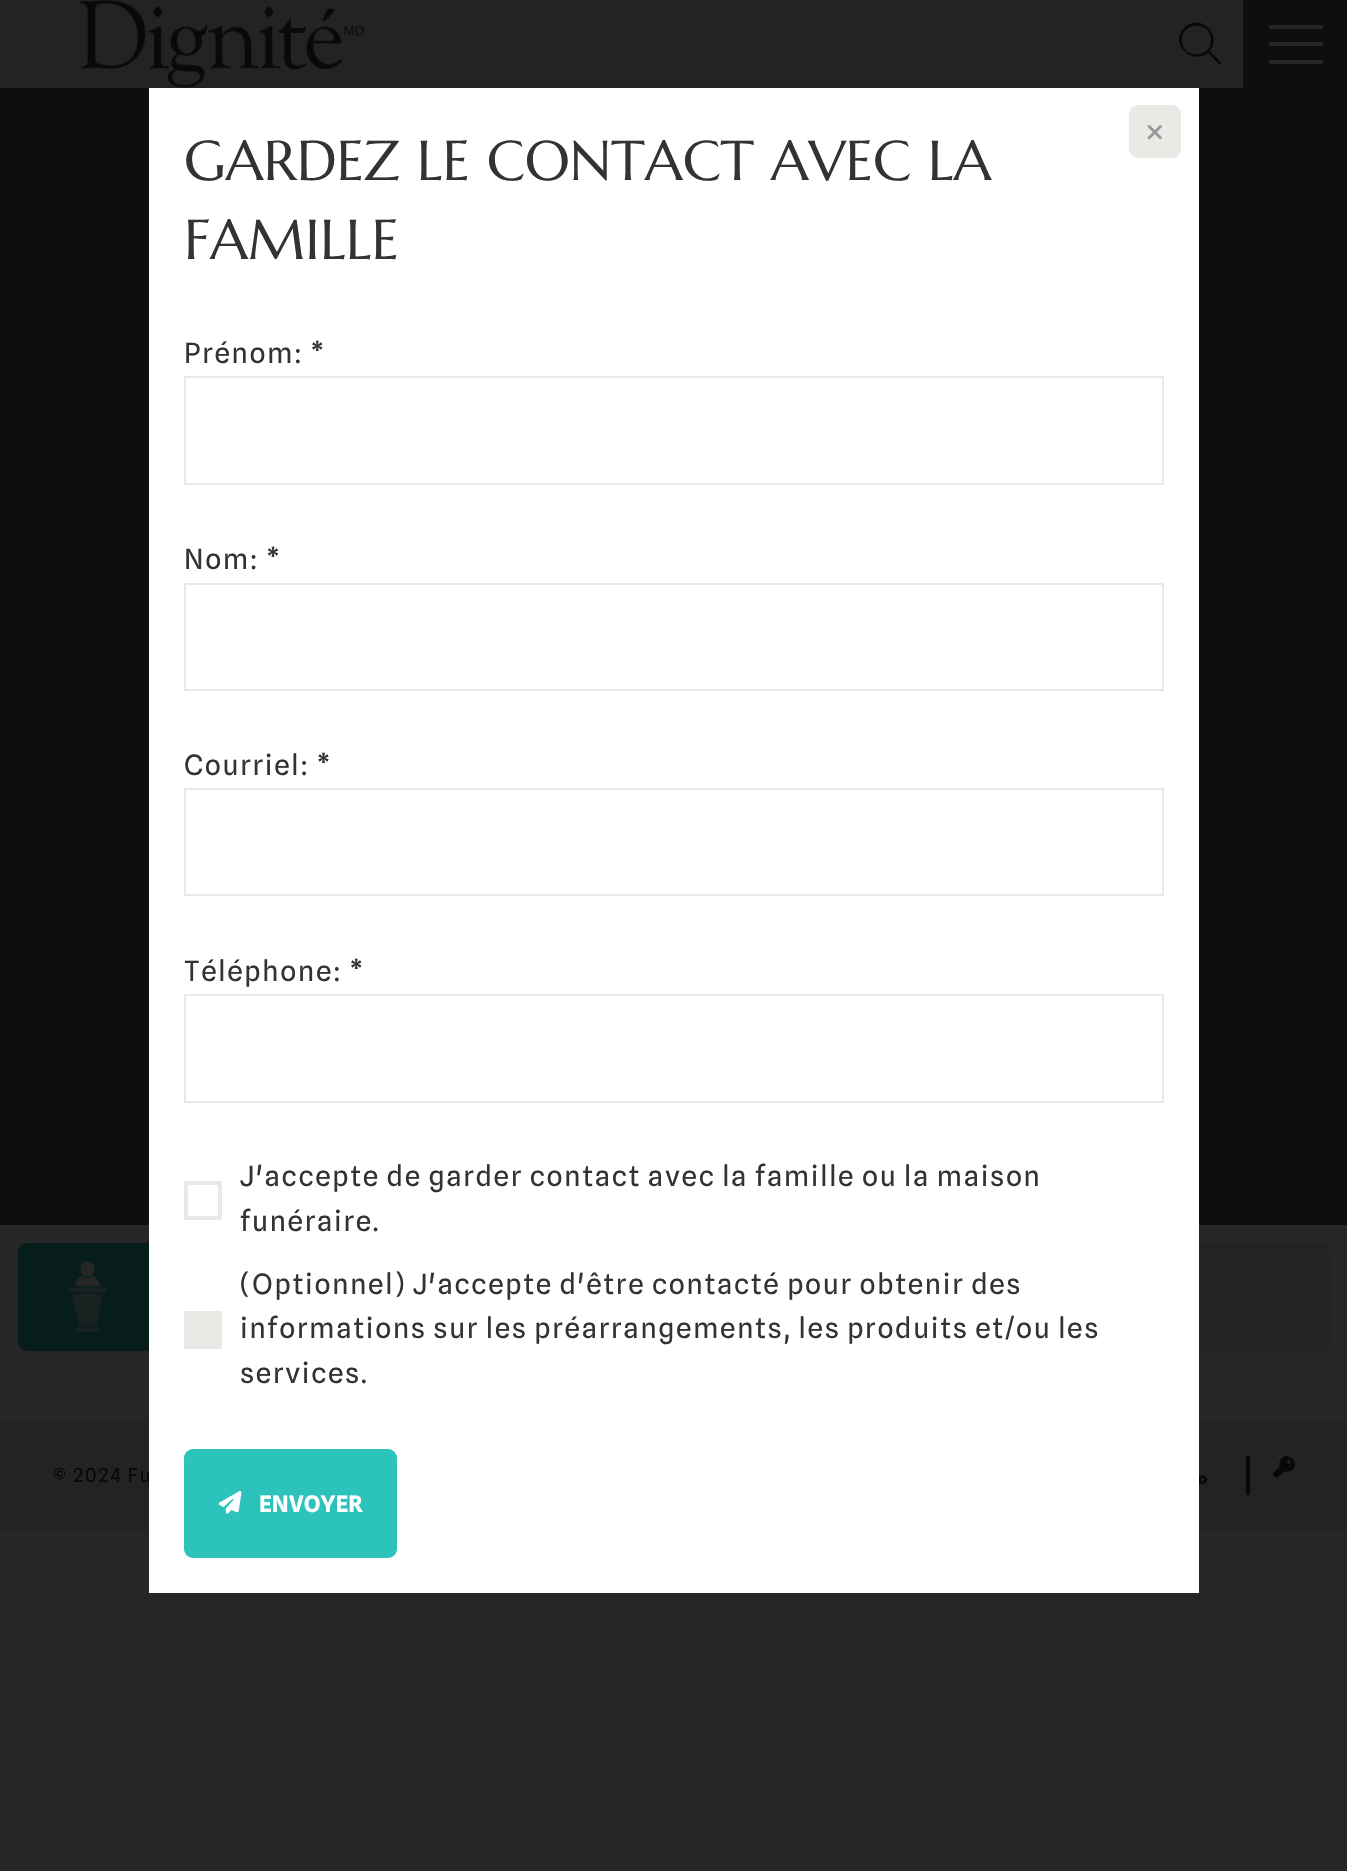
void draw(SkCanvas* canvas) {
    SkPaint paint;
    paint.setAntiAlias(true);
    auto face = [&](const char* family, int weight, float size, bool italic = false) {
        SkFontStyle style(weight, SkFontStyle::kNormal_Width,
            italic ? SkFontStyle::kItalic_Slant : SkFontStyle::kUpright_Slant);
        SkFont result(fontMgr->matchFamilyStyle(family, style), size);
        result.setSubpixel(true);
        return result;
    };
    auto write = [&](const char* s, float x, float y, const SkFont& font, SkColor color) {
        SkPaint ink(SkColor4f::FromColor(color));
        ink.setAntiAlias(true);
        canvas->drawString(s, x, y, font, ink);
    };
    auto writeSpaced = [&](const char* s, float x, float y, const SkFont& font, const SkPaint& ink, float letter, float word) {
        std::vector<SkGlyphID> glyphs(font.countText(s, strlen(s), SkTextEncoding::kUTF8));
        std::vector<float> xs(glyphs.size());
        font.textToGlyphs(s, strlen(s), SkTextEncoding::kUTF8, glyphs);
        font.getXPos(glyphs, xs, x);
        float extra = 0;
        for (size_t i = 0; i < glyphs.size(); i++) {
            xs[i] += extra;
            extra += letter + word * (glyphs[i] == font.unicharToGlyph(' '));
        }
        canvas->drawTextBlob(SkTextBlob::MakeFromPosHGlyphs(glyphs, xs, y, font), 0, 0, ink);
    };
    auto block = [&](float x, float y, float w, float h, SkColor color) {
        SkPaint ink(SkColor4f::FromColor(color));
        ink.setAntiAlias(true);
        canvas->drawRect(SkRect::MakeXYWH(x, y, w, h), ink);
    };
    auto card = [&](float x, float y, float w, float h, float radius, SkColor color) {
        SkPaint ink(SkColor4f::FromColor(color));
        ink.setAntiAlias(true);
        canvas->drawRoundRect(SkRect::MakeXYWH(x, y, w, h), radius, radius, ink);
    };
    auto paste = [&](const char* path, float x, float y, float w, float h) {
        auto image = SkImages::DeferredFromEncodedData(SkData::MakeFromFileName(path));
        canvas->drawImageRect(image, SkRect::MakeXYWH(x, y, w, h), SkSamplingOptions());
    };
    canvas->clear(SkColorSetRGB(38, 38, 38));
    block(0, 0, 1243, 88, SkColorSetRGB(36, 35, 35));
    paste("pic1.png", 78, 0, 286, 88);
    paint.setColor(SkColorSetRGB(8, 8, 8));
    canvas->drawPath(SkPathBuilder().moveTo(1211, 40).cubicTo(1211, 21, 1182, 21, 1182, 40).cubicTo(1182, 59, 1211, 59, 1211, 40).close().moveTo(1208, 53).cubicTo(1192, 66, 1169, 43, 1184, 28).cubicTo(1200, 12, 1223, 35, 1210, 51).cubicTo(1211, 53, 1222, 62, 1221, 64).cubicTo(1221, 65, 1220, 65, 1219, 64).close().detach(), paint);
    block(1243, 0, 104, 88, SkColorSetRGB(14, 14, 14));
    card(1269, 42, 54, 4, 2, SkColorSetRGB(38, 38, 38));
    card(1269, 25, 54, 4, 2, SkColorSetRGB(38, 38, 38));
    card(1269, 60, 54, 4, 2, SkColorSetRGB(38, 38, 38));
    block(0, 88, 1347, 1137, SkColorSetRGB(14, 14, 14));
    card(18, 1243, 647, 108, 9, SkColorSetRGB(7, 29, 28));
    paste("pic2.png", 68, 1261, 39, 71);
    card(683, 1243, 647, 108, 9, SkColorSetRGB(35, 35, 34));
    block(0, 1421, 1347, 109, SkColorSetRGB(36, 35, 35));
    auto kFont1 = face("Spline Sans", 400, 19.25f);
    writeSpaced("© 2024 Fu", 53, 1482, kFont1, paint, 1.68f, 0);
    paste("pic3.png", 1199, 1475, 8, 10);
    block(1246, 1456, 4, 39, SkColorSetRGB(8, 8, 8));
    paste("pic4.png", 1272, 1456, 23, 23);
    block(149, 88, 1050, 1505, SK_ColorWHITE);
    card(1129, 105, 52, 53, 9, SkColorSetRGB(234, 233, 229));
    paste("pic5.png", 1147, 125, 15, 15);
    auto kFont2 = face("Marcellus", 400, 56);
    write("GARDEZ LE CONTACT AVEC LA", 184, 180, kFont2, SkColorSetRGB(51, 51, 51));
    write("FAMILLE", 184, 259, kFont2, SkColorSetRGB(51, 51, 51));
    auto kFont3 = face("Spline Sans", 400, 28);
    paint.setColor(SkColorSetRGB(51, 51, 51));
    writeSpaced("Prénom: *", 184, 363, kFont3, paint, 1.68f, 0);
    paint.setStyle(SkPaint::kStroke_Style);
    paint.setStrokeWidth(2);
    paint.setColor(SkColorSetRGB(234, 233, 229));
    canvas->drawRect(SkRect::MakeXYWH(185, 377, 978, 107), paint);
    paint.setStyle(SkPaint::kFill_Style);
    paint.setColor(SkColorSetRGB(51, 51, 51));
    writeSpaced("Nom: *", 184, 569, kFont3, paint, 1.68f, 0);
    paint.setStyle(SkPaint::kStroke_Style);
    paint.setColor(SkColorSetRGB(234, 233, 229));
    canvas->drawRect(SkRect::MakeXYWH(185, 584, 978, 106), paint);
    paint.setStyle(SkPaint::kFill_Style);
    paint.setColor(SkColorSetRGB(51, 51, 51));
    writeSpaced("Courriel: *", 184, 775, kFont3, paint, 1.68f, 0);
    paint.setStyle(SkPaint::kStroke_Style);
    paint.setColor(SkColorSetRGB(234, 233, 229));
    canvas->drawRect(SkRect::MakeXYWH(185, 789, 978, 106), paint);
    paint.setStyle(SkPaint::kFill_Style);
    paint.setColor(SkColorSetRGB(51, 51, 51));
    writeSpaced("Téléphone: *", 184, 981, kFont3, paint, 1.68f, 0);
    paint.setStyle(SkPaint::kStroke_Style);
    paint.setColor(SkColorSetRGB(234, 233, 229));
    canvas->drawRect(SkRect::MakeXYWH(185, 995, 978, 107), paint);
    paint.setStrokeWidth(4);
    canvas->drawRect(SkRect::MakeXYWH(186, 1183, 34, 35), paint);
    paint.setStyle(SkPaint::kFill_Style);
    paint.setColor(SkColorSetRGB(51, 51, 51));
    writeSpaced("J'accepte de garder contact avec la famille ou la maison", 240, 1186, kFont3, paint, 1.68f, 0);
    writeSpaced("funéraire.", 240, 1231, kFont3, paint, 1.68f, 0);
    block(184, 1311, 38, 38, SkColorSetRGB(234, 233, 229));
    writeSpaced("(Optionnel) J'accepte d'être contacté pour obtenir des", 240, 1294, kFont3, paint, 1.68f, 0);
    writeSpaced("informations sur les préarrangements, les produits et/ou les", 240, 1338, kFont3, paint, 1.68f, 0);
    writeSpaced("services.", 240, 1383, kFont3, paint, 1.68f, 0);
    card(184, 1449, 213, 109, 9, SkColorSetRGB(44, 195, 188));
    paste("pic6.png", 218, 1491, 24, 23);
    auto kFont4 = face("Spline Sans", 700, 22.75f);
    write("ENVOYER", 259, 1512, kFont4, SK_ColorWHITE);
}
